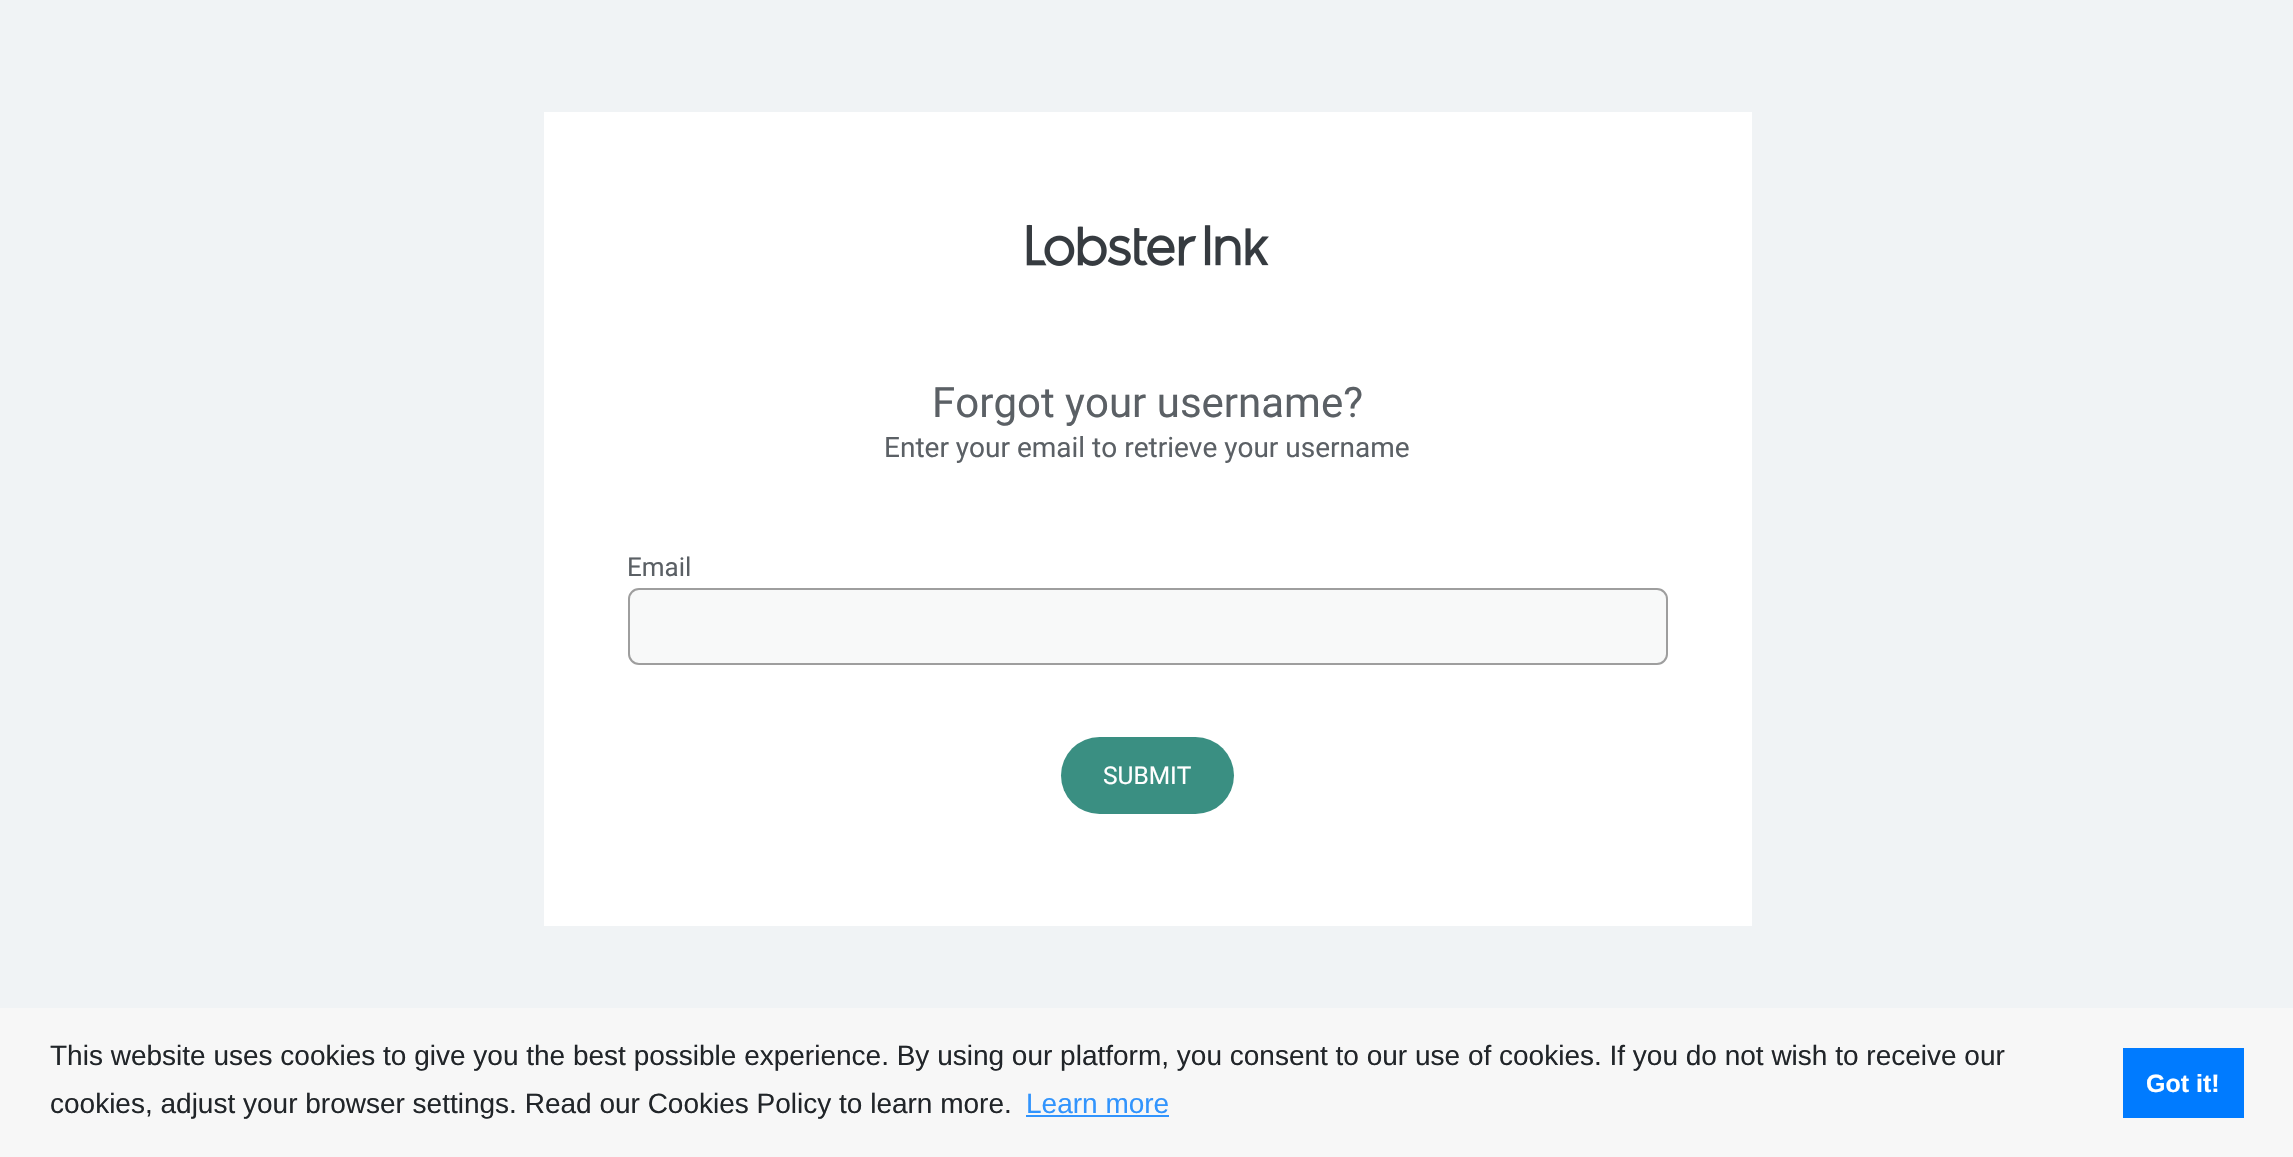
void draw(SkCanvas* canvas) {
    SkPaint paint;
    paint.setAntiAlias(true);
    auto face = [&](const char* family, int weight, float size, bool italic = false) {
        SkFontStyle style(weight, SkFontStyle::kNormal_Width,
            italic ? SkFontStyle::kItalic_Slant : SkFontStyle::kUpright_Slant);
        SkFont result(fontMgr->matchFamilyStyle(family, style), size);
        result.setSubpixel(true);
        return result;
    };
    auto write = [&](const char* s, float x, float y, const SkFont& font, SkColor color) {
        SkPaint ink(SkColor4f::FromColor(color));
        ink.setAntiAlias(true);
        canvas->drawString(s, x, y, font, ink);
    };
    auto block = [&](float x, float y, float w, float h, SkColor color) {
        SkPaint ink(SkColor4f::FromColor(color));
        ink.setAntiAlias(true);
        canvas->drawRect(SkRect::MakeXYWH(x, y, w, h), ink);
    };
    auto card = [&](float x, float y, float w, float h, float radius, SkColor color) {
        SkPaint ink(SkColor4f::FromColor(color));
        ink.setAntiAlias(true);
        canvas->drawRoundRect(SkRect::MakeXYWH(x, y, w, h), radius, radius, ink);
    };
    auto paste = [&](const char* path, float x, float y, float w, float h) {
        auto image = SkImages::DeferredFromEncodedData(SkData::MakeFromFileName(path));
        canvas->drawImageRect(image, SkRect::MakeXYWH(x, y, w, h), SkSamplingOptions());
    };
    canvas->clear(SkColorSetRGB(240, 243, 245));
    block(544, 112, 1208, 814, SK_ColorWHITE);
    paste("pic1.png", 1026, 224, 243, 42);
    auto kFont1 = face("Roboto", 400, 42);
    write("Forgot your username?", 932, 417, kFont1, SkColorSetRGB(91, 96, 101));
    auto kFont2 = face("Roboto", 400, 28);
    write("Enter your email to retrieve your username", 884, 457, kFont2, SkColorSetRGB(91, 96, 101));
    auto kFont3 = face("Roboto", 400, 26);
    write("Email", 627, 576, kFont3, SkColorSetRGB(91, 96, 101));
    paint.setColor(SkColorSetRGB(248, 249, 249));
    canvas->drawRoundRect(SkRect::MakeXYWH(629, 589, 1038, 75), 10, 10, paint);
    paint.setStyle(SkPaint::kStroke_Style);
    paint.setStrokeWidth(2);
    paint.setColor(SkColorSetRGB(158, 158, 158));
    canvas->drawRoundRect(SkRect::MakeXYWH(629, 589, 1038, 75), 10, 10, paint);
    card(1061, 737, 173, 77, 38.5f, SkColorSetRGB(58, 143, 130));
    auto kFont4 = face("Roboto", 400, 24.5f);
    write("SUBMIT", 1103, 784, kFont4, SK_ColorWHITE);
    block(0, 1008, 2293, 149, SkColorSetRGB(247, 247, 247));
    auto kFont5 = face("Liberation Sans", 400, 28);
    write("This website uses cookies to give you the best possible experience. By using our platform, you consent to our use of cookies. If you do not wish to receive our", 50, 1065, kFont5, SkColorSetRGB(33, 37, 41));
    write("cookies, adjust your browser settings. Read our Cookies Policy to learn more.", 50, 1113, kFont5, SkColorSetRGB(33, 37, 41));
    write("Learn more", 1026, 1113, kFont5, SkColorSetRGB(49, 148, 253));
    block(1026, 1115, 143, 2, SkColorSetRGB(49, 148, 253));
    block(2123, 1048, 121, 70, SkColorSetRGB(0, 123, 255));
    auto kFont6 = face("Liberation Sans", 700, 25);
    write("Got it!", 2146, 1092, kFont6, SK_ColorWHITE);
}
